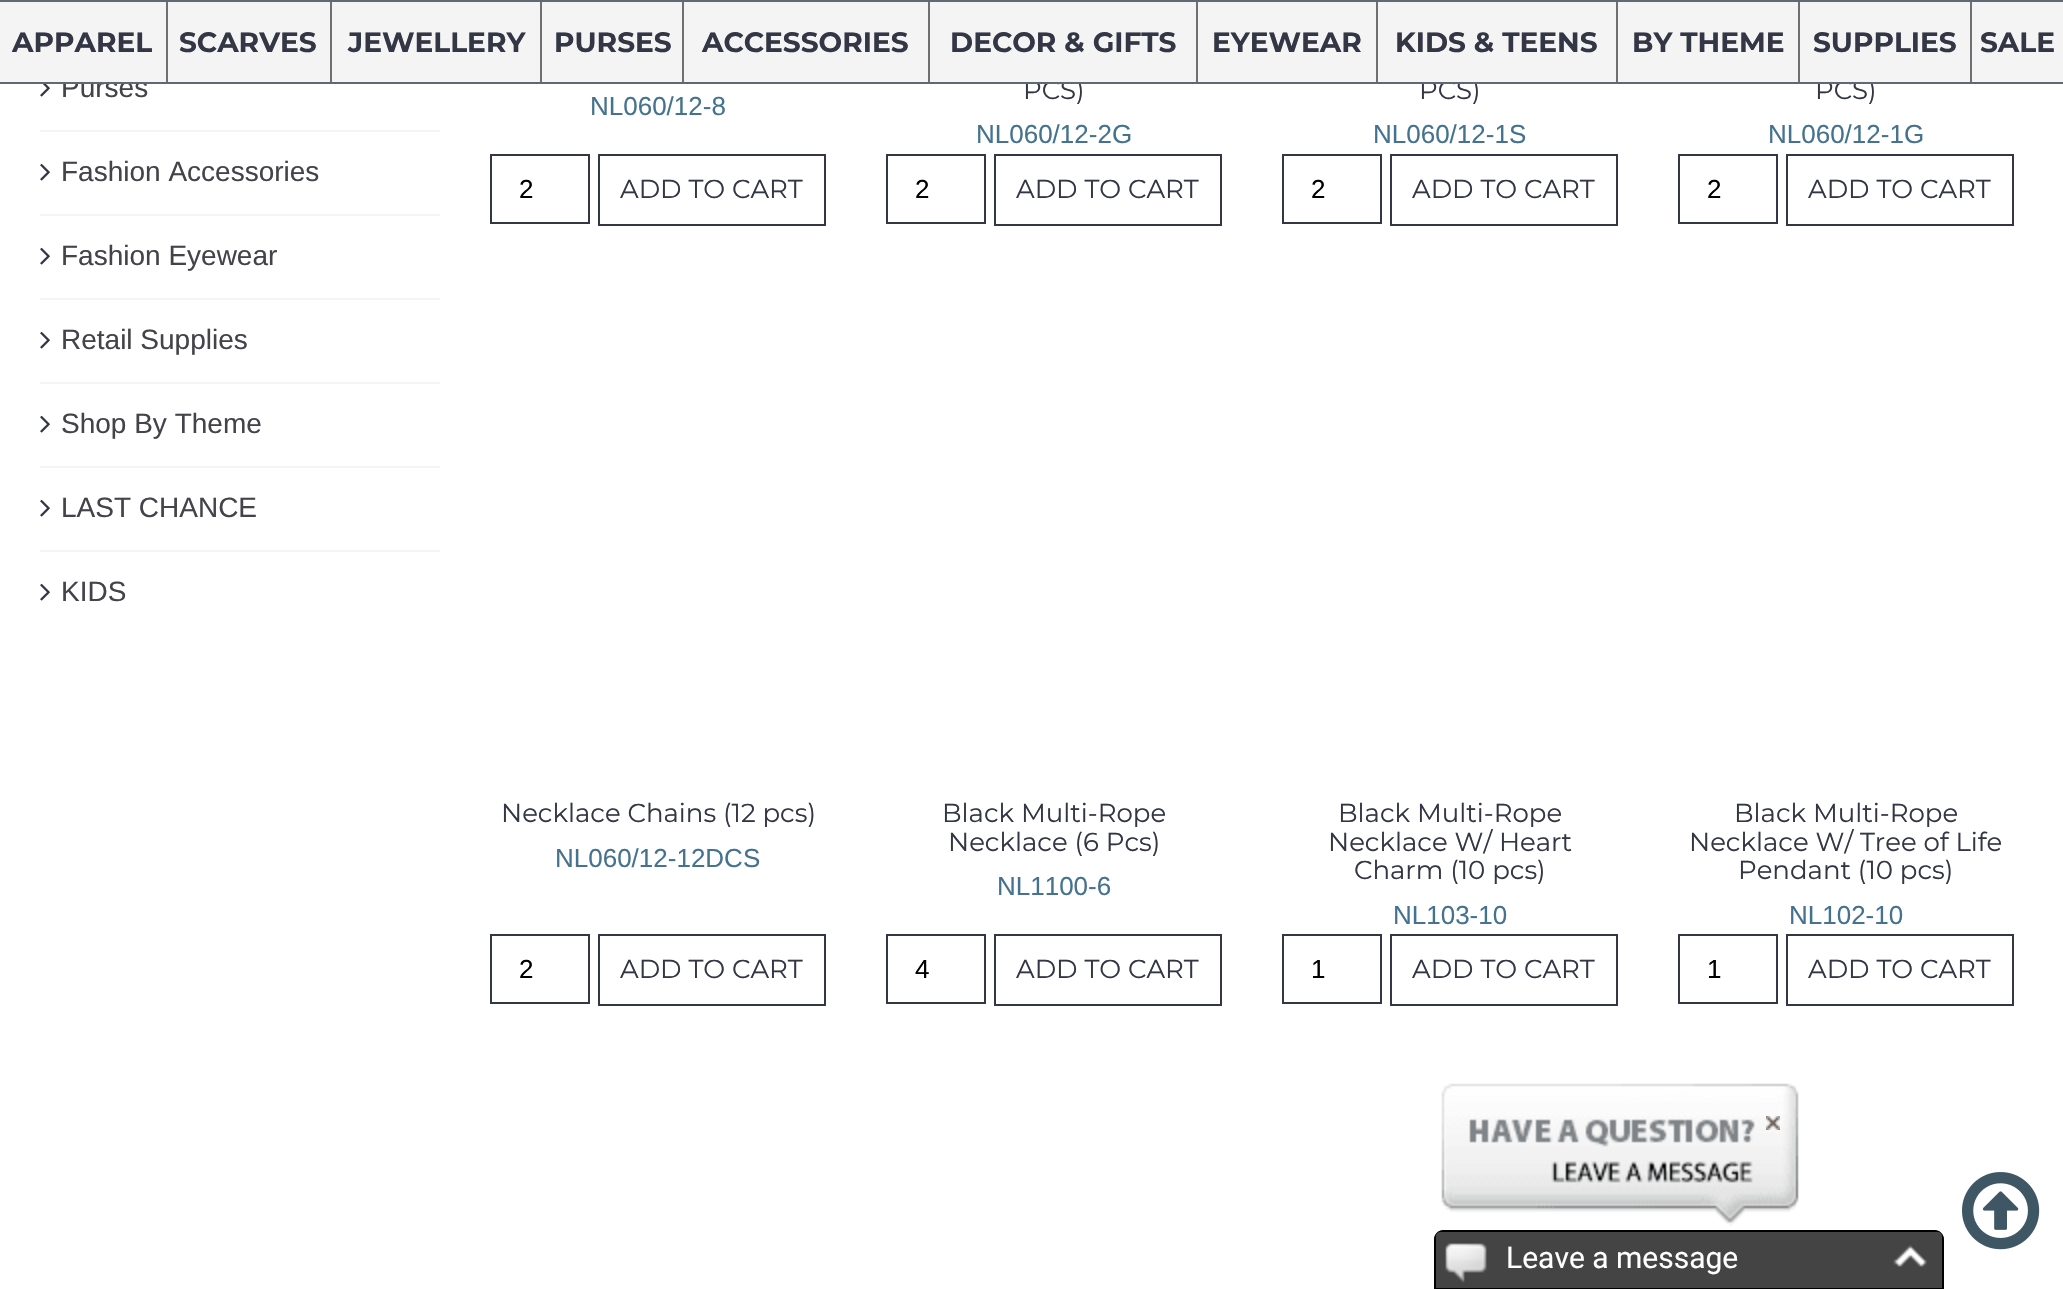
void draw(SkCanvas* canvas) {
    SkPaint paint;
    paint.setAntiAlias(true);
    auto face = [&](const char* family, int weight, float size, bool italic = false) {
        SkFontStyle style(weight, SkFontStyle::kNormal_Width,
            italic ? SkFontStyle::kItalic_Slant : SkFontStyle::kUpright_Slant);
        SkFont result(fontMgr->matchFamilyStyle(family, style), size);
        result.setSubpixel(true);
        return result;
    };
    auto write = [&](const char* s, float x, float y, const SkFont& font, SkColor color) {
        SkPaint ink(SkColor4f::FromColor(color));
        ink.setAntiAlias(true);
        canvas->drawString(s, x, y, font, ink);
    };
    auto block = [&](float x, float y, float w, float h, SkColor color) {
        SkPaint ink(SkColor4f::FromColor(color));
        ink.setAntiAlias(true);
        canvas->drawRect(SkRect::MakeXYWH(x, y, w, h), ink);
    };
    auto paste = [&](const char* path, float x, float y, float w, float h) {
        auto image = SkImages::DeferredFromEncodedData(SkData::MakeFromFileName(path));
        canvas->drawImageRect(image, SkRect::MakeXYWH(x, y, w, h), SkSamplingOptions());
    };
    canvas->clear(SK_ColorWHITE);
    auto kFont1 = face("Liberation Sans", 400, 28);
    write("Purses", 61, 97, kFont1, SkColorSetRGB(68, 67, 73));
    auto kFont2 = face("Montserrat", 400, 26);
    write("PCS)", 1023, 99, kFont2, SkColorSetRGB(51, 55, 69));
    write("PCS)", 1419, 99, kFont2, SkColorSetRGB(51, 55, 69));
    write("PCS)", 1815, 99, kFont2, SkColorSetRGB(51, 55, 69));
    block(0, 2, 2063, 80, SkColorSetRGB(244, 244, 244));
    block(0, 0, 2063, 2, SkColorSetRGB(95, 104, 116));
    block(0, 82, 2063, 2, SkColorSetRGB(95, 104, 116));
    auto kFont3 = face("Montserrat", 700, 28);
    write("APPAREL", 12, 52, kFont3, SkColorSetRGB(51, 55, 69));
    block(166, 2, 2, 80, SkColorSetRGB(110, 111, 113));
    write("SCARVES", 179, 52, kFont3, SkColorSetRGB(51, 55, 69));
    block(330, 2, 2, 80, SkColorSetRGB(110, 111, 113));
    write("JEWELLERY", 348, 52, kFont3, SkColorSetRGB(51, 55, 69));
    block(540, 2, 2, 80, SkColorSetRGB(110, 111, 113));
    write("PURSES", 554, 52, kFont3, SkColorSetRGB(51, 55, 69));
    block(682, 2, 2, 80, SkColorSetRGB(110, 111, 113));
    write("ACCESSORIES", 702, 52, kFont3, SkColorSetRGB(51, 55, 69));
    block(928, 2, 2, 80, SkColorSetRGB(110, 111, 113));
    write("DECOR & GIFTS", 950, 52, kFont3, SkColorSetRGB(51, 55, 69));
    block(1196, 2, 2, 80, SkColorSetRGB(110, 111, 113));
    write("EYEWEAR", 1212, 52, kFont3, SkColorSetRGB(51, 55, 69));
    block(1376, 2, 2, 80, SkColorSetRGB(110, 111, 113));
    write("KIDS & TEENS", 1395, 52, kFont3, SkColorSetRGB(51, 55, 69));
    block(1616, 2, 2, 80, SkColorSetRGB(110, 111, 113));
    write("BY THEME", 1632, 52, kFont3, SkColorSetRGB(51, 55, 69));
    block(1798, 2, 2, 80, SkColorSetRGB(110, 111, 113));
    write("SUPPLIES", 1813, 52, kFont3, SkColorSetRGB(51, 55, 69));
    block(1970, 2, 2, 80, SkColorSetRGB(110, 111, 113));
    write("SALE", 1980, 52, kFont3, SkColorSetRGB(51, 55, 69));
    block(40, 130, 400, 2, SkColorSetRGB(244, 244, 244));
    paste("pic1.png", 40, 84, 10, 13);
    block(40, 214, 400, 2, SkColorSetRGB(244, 244, 244));
    paste("pic2.png", 40, 163, 10, 18);
    write("Fashion Accessories", 61, 181, kFont1, SkColorSetRGB(68, 67, 73));
    block(40, 298, 400, 2, SkColorSetRGB(244, 244, 244));
    paste("pic2.png", 40, 247, 10, 18);
    write("Fashion Eyewear", 61, 265, kFont1, SkColorSetRGB(68, 67, 73));
    block(40, 382, 400, 2, SkColorSetRGB(244, 244, 244));
    paste("pic2.png", 40, 331, 10, 18);
    write("Retail Supplies", 61, 349, kFont1, SkColorSetRGB(68, 67, 73));
    block(40, 466, 400, 2, SkColorSetRGB(244, 244, 244));
    paste("pic2.png", 40, 415, 10, 18);
    write("Shop By Theme", 61, 433, kFont1, SkColorSetRGB(68, 67, 73));
    block(40, 550, 400, 2, SkColorSetRGB(244, 244, 244));
    paste("pic2.png", 40, 499, 10, 18);
    write("LAST CHANCE", 61, 517, kFont1, SkColorSetRGB(68, 67, 73));
    paste("pic2.png", 40, 583, 10, 18);
    write("KIDS", 61, 601, kFont1, SkColorSetRGB(68, 67, 73));
    auto kFont4 = face("Liberation Sans", 400, 26);
    write("NL060/12-8", 590, 115, kFont4, SkColorSetRGB(69, 115, 143));
    paint.setStyle(SkPaint::kStroke_Style);
    paint.setStrokeWidth(2);
    paint.setColor(SkColorSetRGB(51, 55, 69));
    canvas->drawRect(SkRect::MakeXYWH(491, 155, 98, 68), paint);
    write("2", 519, 198, kFont4, SK_ColorBLACK);
    canvas->drawRect(SkRect::MakeXYWH(599, 155, 226, 70), paint);
    write("ADD TO CART", 620, 198, kFont2, SkColorSetRGB(51, 55, 69));
    write("NL060/12-2G", 976, 143, kFont4, SkColorSetRGB(69, 115, 143));
    canvas->drawRect(SkRect::MakeXYWH(887, 155, 98, 68), paint);
    write("2", 915, 198, kFont4, SK_ColorBLACK);
    canvas->drawRect(SkRect::MakeXYWH(995, 155, 226, 70), paint);
    write("ADD TO CART", 1016, 198, kFont2, SkColorSetRGB(51, 55, 69));
    write("NL060/12-1S", 1373, 143, kFont4, SkColorSetRGB(69, 115, 143));
    canvas->drawRect(SkRect::MakeXYWH(1283, 155, 98, 68), paint);
    write("2", 1311, 198, kFont4, SK_ColorBLACK);
    canvas->drawRect(SkRect::MakeXYWH(1391, 155, 226, 70), paint);
    write("ADD TO CART", 1412, 198, kFont2, SkColorSetRGB(51, 55, 69));
    write("NL060/12-1G", 1768, 143, kFont4, SkColorSetRGB(69, 115, 143));
    canvas->drawRect(SkRect::MakeXYWH(1679, 155, 98, 68), paint);
    write("2", 1707, 198, kFont4, SK_ColorBLACK);
    canvas->drawRect(SkRect::MakeXYWH(1787, 155, 226, 70), paint);
    write("ADD TO CART", 1808, 198, kFont2, SkColorSetRGB(51, 55, 69));
    write("Necklace Chains (12 pcs)", 501, 822, kFont2, SkColorSetRGB(51, 55, 69));
    write("NL060/12-12DCS", 555, 867, kFont4, SkColorSetRGB(69, 115, 143));
    canvas->drawRect(SkRect::MakeXYWH(491, 935, 98, 68), paint);
    write("2", 519, 978, kFont4, SK_ColorBLACK);
    canvas->drawRect(SkRect::MakeXYWH(599, 935, 226, 70), paint);
    write("ADD TO CART", 620, 978, kFont2, SkColorSetRGB(51, 55, 69));
    write("Black Multi-Rope", 942, 822, kFont2, SkColorSetRGB(51, 55, 69));
    write("Necklace (6 Pcs)", 948, 851, kFont2, SkColorSetRGB(51, 55, 69));
    write("NL1100-6", 997, 895, kFont4, SkColorSetRGB(69, 115, 143));
    canvas->drawRect(SkRect::MakeXYWH(887, 935, 98, 68), paint);
    write("4", 915, 978, kFont4, SK_ColorBLACK);
    canvas->drawRect(SkRect::MakeXYWH(995, 935, 226, 70), paint);
    write("ADD TO CART", 1016, 978, kFont2, SkColorSetRGB(51, 55, 69));
    write("Black Multi-Rope", 1338, 822, kFont2, SkColorSetRGB(51, 55, 69));
    write("Necklace W/ Heart", 1328, 851, kFont2, SkColorSetRGB(51, 55, 69));
    write("Charm (10 pcs)", 1354, 879, kFont2, SkColorSetRGB(51, 55, 69));
    write("NL103-10", 1393, 924, kFont4, SkColorSetRGB(69, 115, 143));
    canvas->drawRect(SkRect::MakeXYWH(1283, 935, 98, 68), paint);
    write("1", 1311, 978, kFont4, SK_ColorBLACK);
    canvas->drawRect(SkRect::MakeXYWH(1391, 935, 226, 70), paint);
    write("ADD TO CART", 1412, 978, kFont2, SkColorSetRGB(51, 55, 69));
    write("Black Multi-Rope", 1734, 822, kFont2, SkColorSetRGB(51, 55, 69));
    write("Necklace W/ Tree of Life", 1689, 851, kFont2, SkColorSetRGB(51, 55, 69));
    write("Pendant (10 pcs)", 1738, 879, kFont2, SkColorSetRGB(51, 55, 69));
    write("NL102-10", 1789, 924, kFont4, SkColorSetRGB(69, 115, 143));
    canvas->drawRect(SkRect::MakeXYWH(1679, 935, 98, 68), paint);
    write("1", 1707, 978, kFont4, SK_ColorBLACK);
    canvas->drawRect(SkRect::MakeXYWH(1787, 935, 226, 70), paint);
    write("ADD TO CART", 1808, 978, kFont2, SkColorSetRGB(51, 55, 69));
    paste("pic3.png", 1962, 1172, 78, 78);
    paste("pic4.png", 1441, 1083, 358, 143);
    paste("pic5.png", 1766, 1116, 14, 14);
    paint.setStyle(SkPaint::kFill_Style);
    paint.setColor(SkColorSetRGB(68, 68, 68));
    canvas->drawPath(SkPathBuilder().moveTo(1444, 1230).lineTo(1934, 1230).cubicTo(1939.5f, 1230, 1944, 1234.5f, 1944, 1240).lineTo(1944, 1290).lineTo(1434, 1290).lineTo(1434, 1240).cubicTo(1434, 1234.5f, 1438.5f, 1230, 1444, 1230).close().detach(), paint);
    paint.setColor(SK_ColorBLACK);
    canvas->drawPath(SkPathBuilder(SkPathFillType::kEvenOdd).moveTo(1444, 1230).cubicTo(1438, 1230, 1434, 1234, 1434, 1240).lineTo(1434, 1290).lineTo(1944, 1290).lineTo(1944, 1240).cubicTo(1944, 1234, 1940, 1230, 1934, 1230).close().moveTo(1440, 1232).cubicTo(1438, 1232, 1436, 1234, 1436, 1236).lineTo(1436, 1288).lineTo(1942, 1288).lineTo(1942, 1236).cubicTo(1942, 1234, 1940, 1232, 1938, 1232).close().detach(), paint);
    paste("pic6.png", 1445, 1243, 42, 40);
    auto kFont5 = face("Roboto", 400, 30);
    write("Leave a message", 1506, 1268, kFont5, SK_ColorWHITE);
    paste("pic7.png", 1893, 1245, 34, 22);
}
